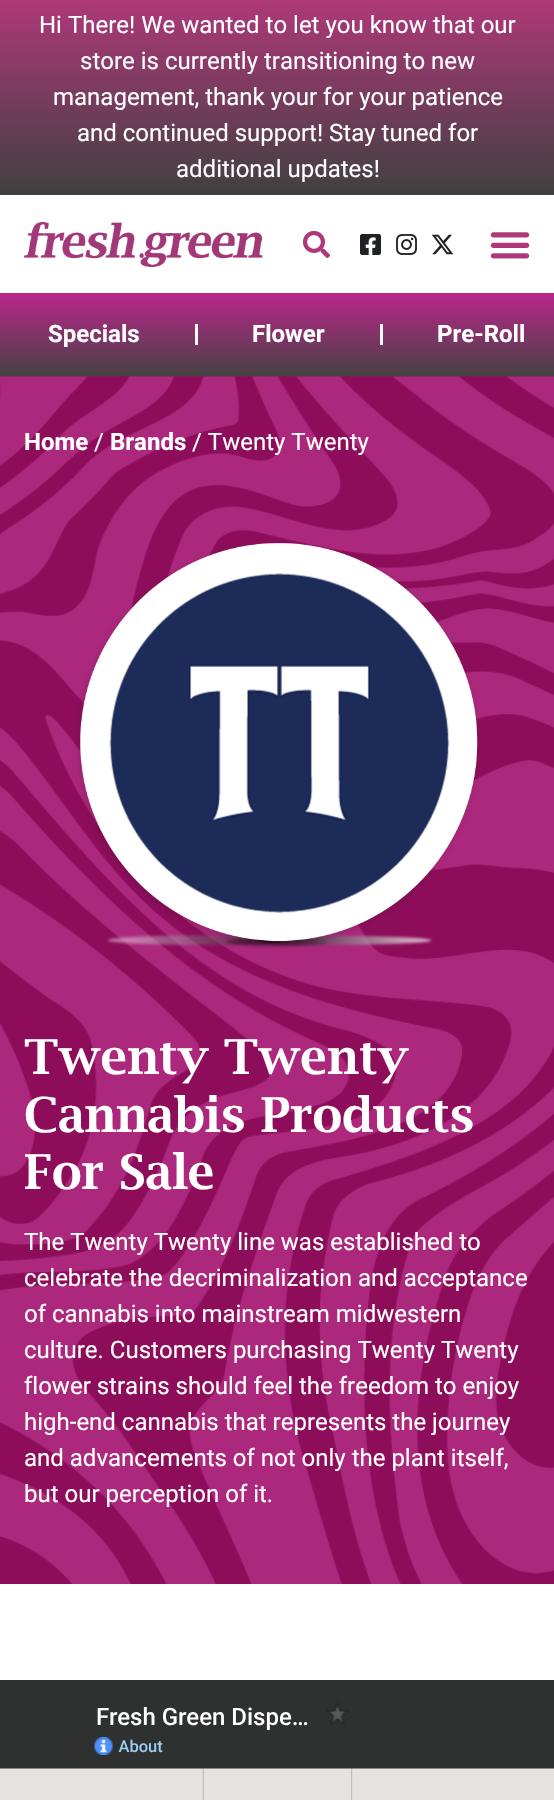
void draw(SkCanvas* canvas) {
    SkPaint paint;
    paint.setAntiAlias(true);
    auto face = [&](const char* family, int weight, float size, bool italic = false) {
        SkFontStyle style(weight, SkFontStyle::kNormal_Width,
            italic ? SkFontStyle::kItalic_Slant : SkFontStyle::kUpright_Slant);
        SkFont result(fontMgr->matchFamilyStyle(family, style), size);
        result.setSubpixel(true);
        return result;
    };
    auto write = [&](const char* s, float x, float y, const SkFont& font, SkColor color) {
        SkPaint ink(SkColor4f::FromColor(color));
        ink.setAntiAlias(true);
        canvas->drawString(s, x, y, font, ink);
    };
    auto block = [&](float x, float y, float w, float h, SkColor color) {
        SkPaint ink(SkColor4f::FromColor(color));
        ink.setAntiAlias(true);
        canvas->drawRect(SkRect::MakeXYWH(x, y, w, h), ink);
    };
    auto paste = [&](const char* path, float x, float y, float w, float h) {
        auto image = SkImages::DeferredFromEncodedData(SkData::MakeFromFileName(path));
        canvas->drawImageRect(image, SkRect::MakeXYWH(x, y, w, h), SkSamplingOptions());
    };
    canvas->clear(SK_ColorWHITE);
    {
        const SkColor colors[] = {SkColorSetRGB(174, 56, 121), SkColorSetRGB(64, 64, 64)};
        const float stops[] = {0, 1};
        const SkPoint ends[] = {{278, 0}, {278, 195}};
        paint.setShader(SkGradientShader::MakeLinear(ends, colors, stops, 2, SkTileMode::kClamp));
        paint.setAlpha(255);
    }
    canvas->drawRect(SkRect::MakeXYWH(0, 0, 554, 195), paint);
    auto kFont1 = face("Roboto", 400, 24);
    write("Hi There! We wanted to let you know that our", 39, 33, kFont1, SK_ColorWHITE);
    write("store is currently transitioning to new", 80, 69, kFont1, SK_ColorWHITE);
    write("management, thank your for your patience", 53, 105, kFont1, SK_ColorWHITE);
    write("and continued support! Stay tuned for", 77, 141, kFont1, SK_ColorWHITE);
    write("additional updates!", 176, 177, kFont1, SK_ColorWHITE);
    paste("pic1.png", 24, 222, 239, 45);
    paste("pic2.png", 303, 231, 27, 27);
    paste("pic3.png", 360, 234, 21, 21);
    paste("pic4.png", 396, 234, 21, 21);
    paste("pic5.png", 431, 234, 23, 21);
    paste("pic6.png", 490, 232, 40, 27);
    {
        const SkColor colors[] = {SkColorSetRGB(189, 37, 141), SkColorSetRGB(69, 66, 66)};
        const float stops[] = {0, 1};
        const SkPoint ends[] = {{278, 292}, {278, 377}};
        paint.setShader(SkGradientShader::MakeLinear(ends, colors, stops, 2, SkTileMode::kClamp));
        paint.setAlpha(255);
    }
    canvas->drawRect(SkRect::MakeXYWH(0, 293, 554, 84), paint);
    auto kFont2 = face("Roboto", 700, 24);
    write("Specials", 48, 342, kFont2, SK_ColorWHITE);
    block(195, 324, 3, 21, SkColorSetRGB(255, 250, 250));
    write("Flower", 252, 342, kFont2, SK_ColorWHITE);
    block(380, 324, 3, 21, SkColorSetRGB(255, 250, 250));
    write("Pre-Roll", 437, 342, kFont2, SK_ColorWHITE);
    paste("pic7.png", 0, 376, 554, 1208);
    write("Home", 24, 450, kFont2, SK_ColorWHITE);
    write("/", 94, 450, kFont1, SK_ColorWHITE);
    write("Brands", 110, 450, kFont2, SK_ColorWHITE);
    write("/ Twenty Twenty", 192, 450, kFont1, SK_ColorWHITE);
    paste("pic8.png", 75, 542, 404, 407);
    auto kFont3 = face("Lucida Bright", 600, 48);
    write("Twenty Twenty", 24, 1074, kFont3, SK_ColorWHITE);
    write("Cannabis Products", 24, 1132, kFont3, SK_ColorWHITE);
    write("For Sale", 24, 1189, kFont3, SK_ColorWHITE);
    write("The Twenty Twenty line was established to", 24, 1250, kFont1, SK_ColorWHITE);
    write("celebrate the decriminalization and acceptance", 24, 1286, kFont1, SK_ColorWHITE);
    write("of cannabis into mainstream midwestern", 24, 1322, kFont1, SK_ColorWHITE);
    write("culture. Customers purchasing Twenty Twenty", 24, 1358, kFont1, SK_ColorWHITE);
    write("flower strains should feel the freedom to enjoy", 24, 1394, kFont1, SK_ColorWHITE);
    write("high-end cannabis that represents the journey", 24, 1430, kFont1, SK_ColorWHITE);
    write("and advancements of not only the plant itself,", 24, 1466, kFont1, SK_ColorWHITE);
    write("but our perception of it.", 24, 1502, kFont1, SK_ColorWHITE);
    paste("pic9.png", 0, 1680, 554, 120);
}
